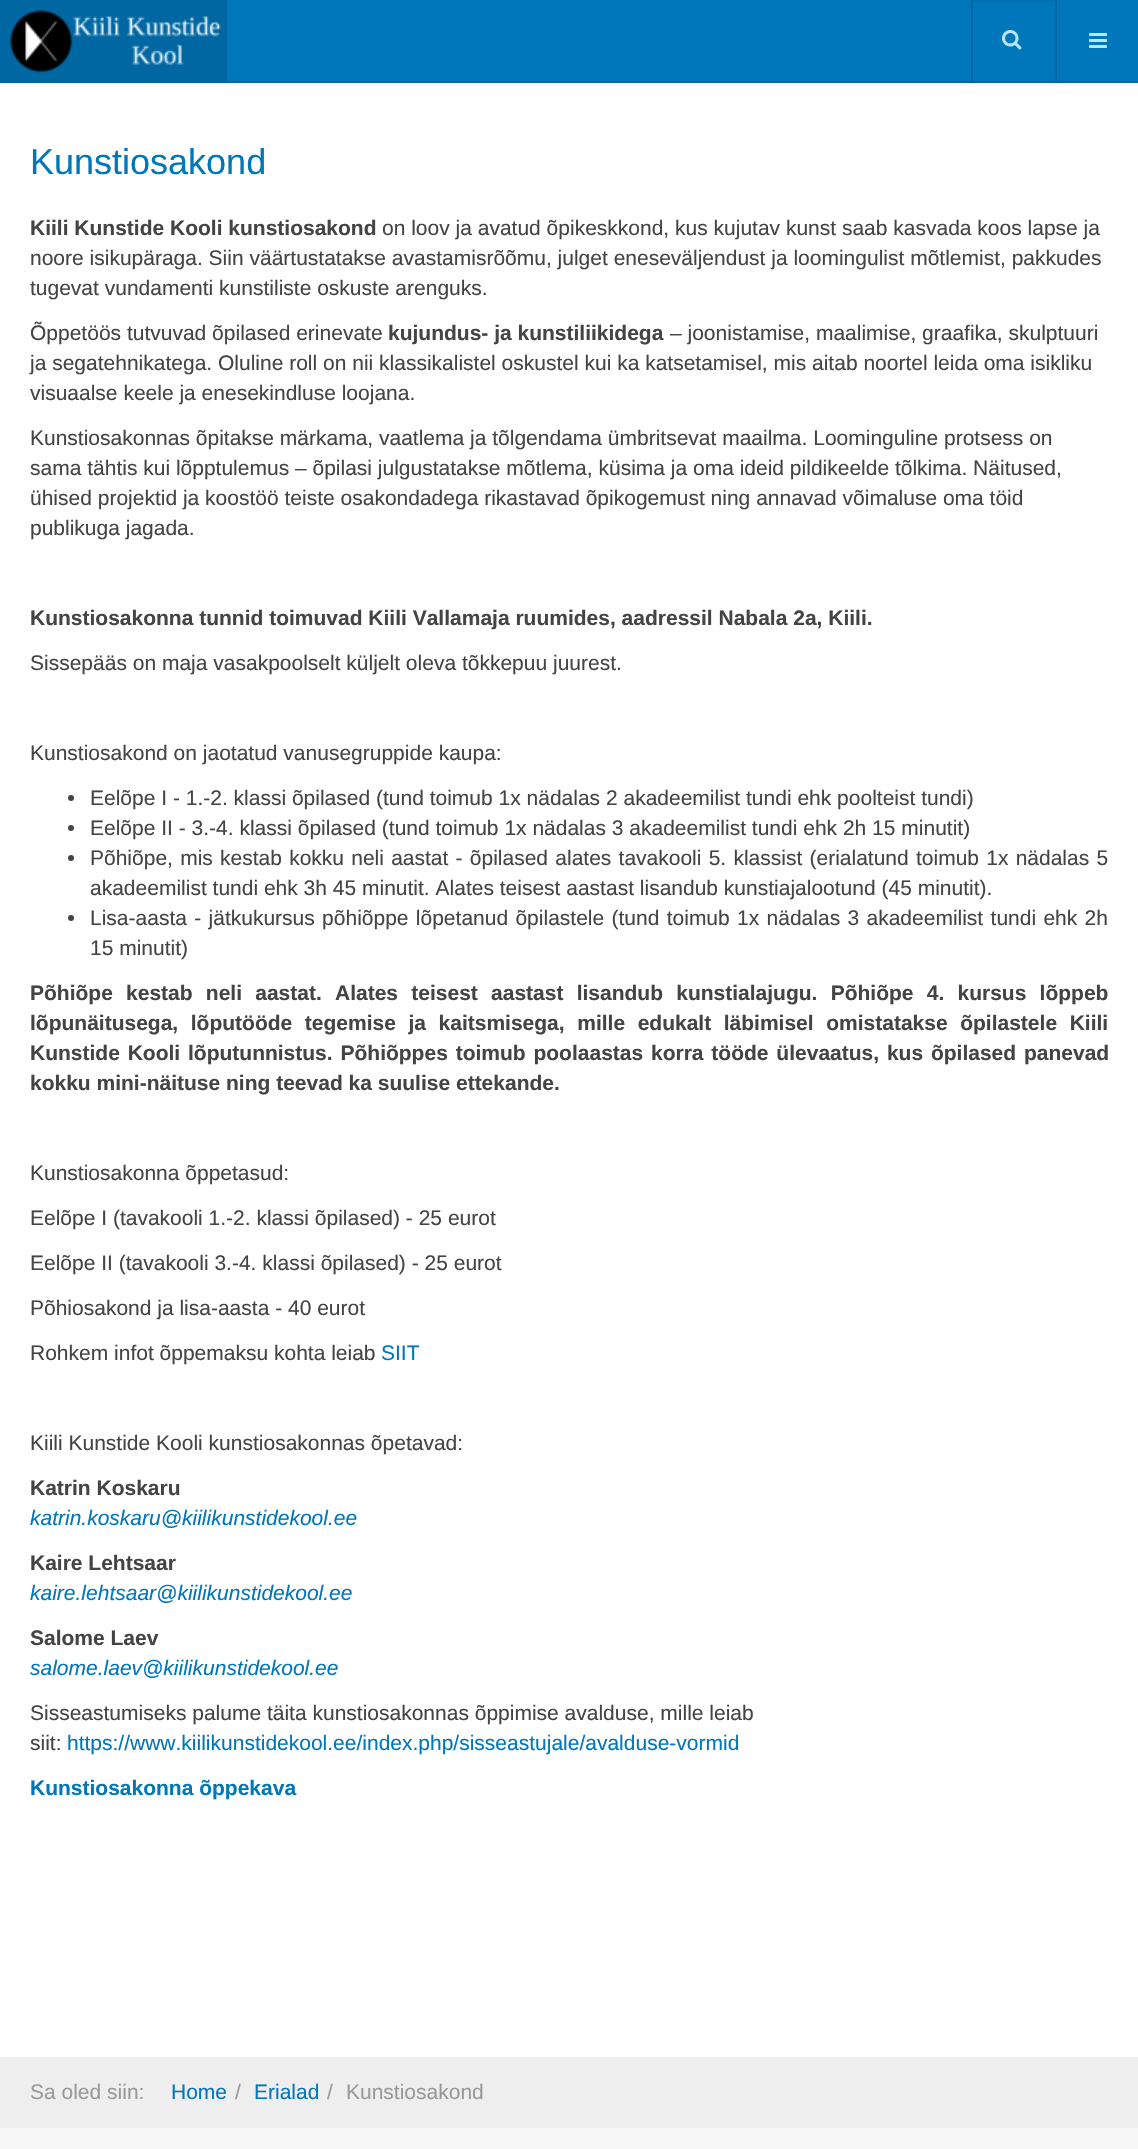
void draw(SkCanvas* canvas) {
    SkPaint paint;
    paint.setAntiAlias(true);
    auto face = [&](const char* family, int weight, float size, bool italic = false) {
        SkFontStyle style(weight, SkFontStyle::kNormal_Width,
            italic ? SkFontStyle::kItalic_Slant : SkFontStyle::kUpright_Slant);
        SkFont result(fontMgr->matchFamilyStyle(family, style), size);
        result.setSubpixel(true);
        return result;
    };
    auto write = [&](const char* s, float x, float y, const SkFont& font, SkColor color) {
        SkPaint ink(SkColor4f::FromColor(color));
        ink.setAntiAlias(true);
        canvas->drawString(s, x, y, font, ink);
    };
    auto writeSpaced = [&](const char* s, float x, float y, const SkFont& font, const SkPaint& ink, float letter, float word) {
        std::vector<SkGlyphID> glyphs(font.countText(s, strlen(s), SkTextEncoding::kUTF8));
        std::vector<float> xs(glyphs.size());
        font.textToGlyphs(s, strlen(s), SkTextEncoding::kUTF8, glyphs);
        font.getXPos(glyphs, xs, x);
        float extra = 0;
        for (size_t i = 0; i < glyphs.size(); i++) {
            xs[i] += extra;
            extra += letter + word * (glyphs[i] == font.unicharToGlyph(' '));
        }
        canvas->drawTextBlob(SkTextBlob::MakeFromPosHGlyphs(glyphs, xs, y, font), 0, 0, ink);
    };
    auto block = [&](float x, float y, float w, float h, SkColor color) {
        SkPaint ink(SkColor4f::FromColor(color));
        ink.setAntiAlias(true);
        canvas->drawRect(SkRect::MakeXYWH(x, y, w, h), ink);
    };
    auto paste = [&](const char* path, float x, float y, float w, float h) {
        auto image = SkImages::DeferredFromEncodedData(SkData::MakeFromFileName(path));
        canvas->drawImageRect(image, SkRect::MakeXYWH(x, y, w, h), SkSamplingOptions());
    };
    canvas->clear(SK_ColorWHITE);
    block(227, 0, 911, 81, SkColorSetRGB(0, 119, 187));
    block(972, 0, 83, 2, SkColorSetRGB(0, 111, 174));
    block(227, 81, 911, 2, SkColorSetRGB(0, 103, 162));
    block(0, 0, 227, 83, SkColorSetRGB(0, 103, 162));
    paste("pic1.png", 10, 10, 211, 63);
    block(1055, 0, 2, 81, SkColorSetRGB(0, 103, 162));
    block(971, 0, 2, 81, SkColorSetRGB(0, 103, 162));
    block(972, 0, 1, 2, SkColorSetRGB(0, 96, 151));
    paste("pic2.png", 1002, 30, 20, 20);
    paste("pic3.png", 1089, 33, 18, 15);
    auto kFont1 = face("Liberation Sans", 400, 36);
    write("Kunstiosakond", 30, 174, kFont1, SkColorSetRGB(0, 119, 187));
    auto kFont2 = face("Liberation Sans", 700, 21);
    write("Kiili Kunstide Kooli kunstiosakond", 30, 235, kFont2, SkColorSetRGB(68, 68, 68));
    auto kFont3 = face("Liberation Sans", 400, 21);
    write("on loov ja avatud õpikeskkond, kus kujutav kunst saab kasvada koos lapse ja", 382, 235, kFont3, SkColorSetRGB(68, 68, 68));
    write("noore isikupäraga. Siin väärtustatakse avastamisrõõmu, julget eneseväljendust ja loomingulist mõtlemist, pakkudes", 30, 265, kFont3, SkColorSetRGB(68, 68, 68));
    write("tugevat vundamenti kunstiliste oskuste arenguks.", 30, 295, kFont3, SkColorSetRGB(68, 68, 68));
    write("Õppetöös tutvuvad õpilased erinevate", 30, 340, kFont3, SkColorSetRGB(68, 68, 68));
    write("kujundus- ja kunstiliikidega", 388, 340, kFont2, SkColorSetRGB(68, 68, 68));
    write("– joonistamise, maalimise, graafika, skulptuuri", 670, 340, kFont3, SkColorSetRGB(68, 68, 68));
    write("ja segatehnikatega. Oluline roll on nii klassikalistel oskustel kui ka katsetamisel, mis aitab noortel leida oma isikliku", 30, 370, kFont3, SkColorSetRGB(68, 68, 68));
    write("visuaalse keele ja enesekindluse loojana.", 30, 400, kFont3, SkColorSetRGB(68, 68, 68));
    write("Kunstiosakonnas õpitakse märkama, vaatlema ja tõlgendama ümbritsevat maailma. Loominguline protsess on", 30, 445, kFont3, SkColorSetRGB(68, 68, 68));
    write("sama tähtis kui lõpptulemus – õpilasi julgustatakse mõtlema, küsima ja oma ideid pildikeelde tõlkima. Näitused,", 30, 475, kFont3, SkColorSetRGB(68, 68, 68));
    write("ühised projektid ja koostöö teiste osakondadega rikastavad õpikogemust ning annavad võimaluse oma töid", 30, 505, kFont3, SkColorSetRGB(68, 68, 68));
    write("publikuga jagada.", 30, 535, kFont3, SkColorSetRGB(68, 68, 68));
    write("Kunstiosakonna tunnid toimuvad Kiili Vallamaja ruumides, aadressil Nabala 2a, Kiili.", 30, 625, kFont2, SkColorSetRGB(68, 68, 68));
    write("Sissepääs on maja vasakpoolselt küljelt oleva tõkkepuu juurest.", 30, 670, kFont3, SkColorSetRGB(68, 68, 68));
    write("Kunstiosakond on jaotatud vanusegruppide kaupa:", 30, 760, kFont3, SkColorSetRGB(68, 68, 68));
    paint.setColor(SkColorSetRGB(68, 68, 68));
    canvas->drawCircle(71, 798, 3, paint);
    write("Eelõpe I - 1.-2. klassi õpilased (tund toimub 1x nädalas 2 akadeemilist tundi ehk poolteist tundi)", 90, 805, kFont3, SkColorSetRGB(68, 68, 68));
    canvas->drawCircle(71, 828, 3, paint);
    write("Eelõpe II - 3.-4. klassi õpilased (tund toimub 1x nädalas 3 akadeemilist tundi ehk 2h 15 minutit)", 90, 835, kFont3, SkColorSetRGB(68, 68, 68));
    canvas->drawCircle(71, 858, 3, paint);
    writeSpaced("Põhiõpe, mis kestab kokku neli aastat - õpilased alates tavakooli 5. klassist (erialatund toimub 1x nädalas 5", 90, 865, kFont3, paint, 0, 1.4f);
    write("akadeemilist tundi ehk 3h 45 minutit. Alates teisest aastast lisandub kunstiajalootund (45 minutit).", 90, 895, kFont3, SkColorSetRGB(68, 68, 68));
    canvas->drawCircle(71, 918, 3, paint);
    writeSpaced("Lisa-aasta - jätkukursus põhiõppe lõpetanud õpilastele (tund toimub 1x nädalas 3 akadeemilist tundi ehk 2h", 90, 925, kFont3, paint, 0, 1.5f);
    write("15 minutit)", 90, 955, kFont3, SkColorSetRGB(68, 68, 68));
    writeSpaced("Põhiõpe kestab neli aastat. Alates teisest aastast lisandub kunstialajugu. Põhiõpe 4. kursus lõppeb", 30, 1000, kFont2, paint, 0, 7.4f);
    writeSpaced("lõpunäitusega, lõputööde tegemise ja kaitsmisega, mille edukalt läbimisel omistatakse õpilastele Kiili", 30, 1030, kFont2, paint, 0, 6.75f);
    writeSpaced("Kunstide Kooli lõputunnistus. Põhiõppes toimub poolaastas korra tööde ülevaatus, kus õpilased panevad", 30, 1060, kFont2, paint, 0, 2);
    write("kokku mini-näituse ning teevad ka suulise ettekande.", 30, 1090, kFont2, SkColorSetRGB(68, 68, 68));
    write("Kunstiosakonna õppetasud:", 30, 1180, kFont3, SkColorSetRGB(68, 68, 68));
    write("Eelõpe I (tavakooli 1.-2. klassi õpilased) - 25 eurot", 30, 1225, kFont3, SkColorSetRGB(68, 68, 68));
    write("Eelõpe II (tavakooli 3.-4. klassi õpilased) - 25 eurot", 30, 1270, kFont3, SkColorSetRGB(68, 68, 68));
    write("Põhiosakond ja lisa-aasta - 40 eurot", 30, 1315, kFont3, SkColorSetRGB(68, 68, 68));
    write("Rohkem infot õppemaksu kohta leiab", 30, 1360, kFont3, SkColorSetRGB(68, 68, 68));
    write("SIIT", 381, 1360, kFont3, SkColorSetRGB(0, 119, 187));
    write("Kiili Kunstide Kooli kunstiosakonnas õpetavad:", 30, 1450, kFont3, SkColorSetRGB(68, 68, 68));
    write("Katrin Koskaru", 30, 1495, kFont2, SkColorSetRGB(68, 68, 68));
    auto kFont4 = face("Liberation Sans", 400, 21, true);
    write("katrin.koskaru@kiilikunstidekool.ee", 30, 1525, kFont4, SkColorSetRGB(0, 119, 187));
    write("Kaire Lehtsaar", 30, 1570, kFont2, SkColorSetRGB(68, 68, 68));
    write("kaire.lehtsaar@kiilikunstidekool.ee", 30, 1600, kFont4, SkColorSetRGB(0, 119, 187));
    write("Salome Laev", 30, 1645, kFont2, SkColorSetRGB(68, 68, 68));
    write("salome.laev@kiilikunstidekool.ee", 30, 1675, kFont4, SkColorSetRGB(0, 119, 187));
    write("Sisseastumiseks palume täita kunstiosakonnas õppimise avalduse, mille leiab", 30, 1720, kFont3, SkColorSetRGB(68, 68, 68));
    write("siit:", 30, 1750, kFont3, SkColorSetRGB(68, 68, 68));
    write("https://www.kiilikunstidekool.ee/index.php/sisseastujale/avalduse-vormid", 67, 1750, kFont3, SkColorSetRGB(0, 119, 187));
    write("Kunstiosakonna õppekava", 30, 1795, kFont2, SkColorSetRGB(0, 119, 187));
    block(0, 2057, 1138, 71, SkColorSetRGB(238, 238, 238));
    write("Sa oled siin:", 30, 2099, kFont3, SkColorSetRGB(153, 153, 153));
    write("Home", 171, 2099, kFont3, SkColorSetRGB(0, 119, 187));
    write("/", 235, 2099, kFont3, SkColorSetRGB(153, 153, 153));
    write("Erialad", 254, 2099, kFont3, SkColorSetRGB(0, 119, 187));
    write("/", 327, 2099, kFont3, SkColorSetRGB(153, 153, 153));
    write("Kunstiosakond", 346, 2099, kFont3, SkColorSetRGB(153, 153, 153));
    block(0, 2128, 1138, 21, SkColorSetRGB(247, 247, 247));
}
